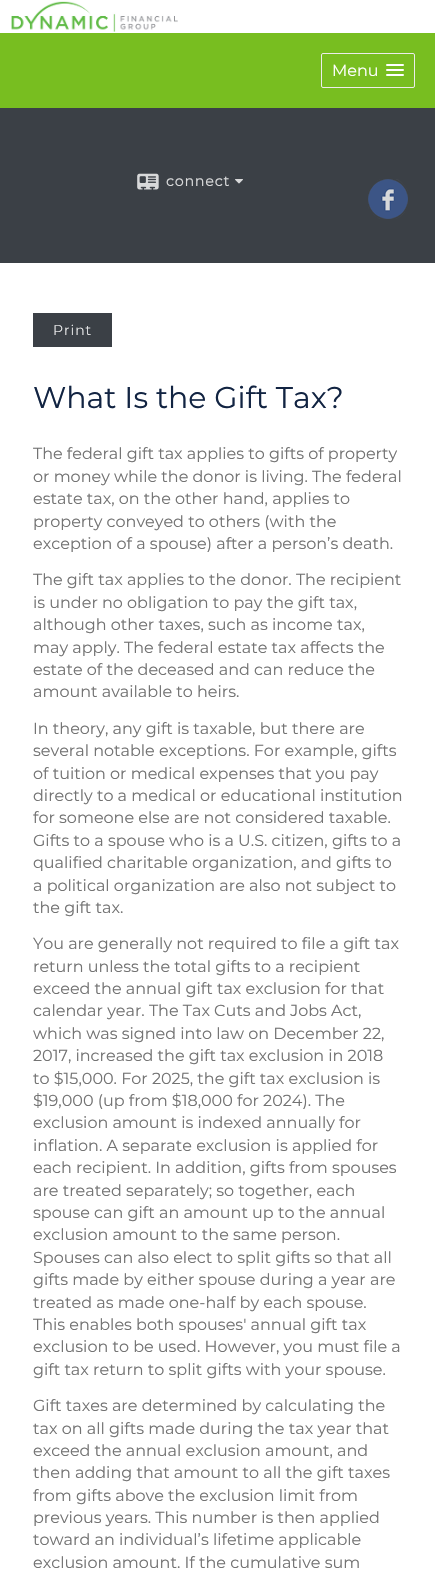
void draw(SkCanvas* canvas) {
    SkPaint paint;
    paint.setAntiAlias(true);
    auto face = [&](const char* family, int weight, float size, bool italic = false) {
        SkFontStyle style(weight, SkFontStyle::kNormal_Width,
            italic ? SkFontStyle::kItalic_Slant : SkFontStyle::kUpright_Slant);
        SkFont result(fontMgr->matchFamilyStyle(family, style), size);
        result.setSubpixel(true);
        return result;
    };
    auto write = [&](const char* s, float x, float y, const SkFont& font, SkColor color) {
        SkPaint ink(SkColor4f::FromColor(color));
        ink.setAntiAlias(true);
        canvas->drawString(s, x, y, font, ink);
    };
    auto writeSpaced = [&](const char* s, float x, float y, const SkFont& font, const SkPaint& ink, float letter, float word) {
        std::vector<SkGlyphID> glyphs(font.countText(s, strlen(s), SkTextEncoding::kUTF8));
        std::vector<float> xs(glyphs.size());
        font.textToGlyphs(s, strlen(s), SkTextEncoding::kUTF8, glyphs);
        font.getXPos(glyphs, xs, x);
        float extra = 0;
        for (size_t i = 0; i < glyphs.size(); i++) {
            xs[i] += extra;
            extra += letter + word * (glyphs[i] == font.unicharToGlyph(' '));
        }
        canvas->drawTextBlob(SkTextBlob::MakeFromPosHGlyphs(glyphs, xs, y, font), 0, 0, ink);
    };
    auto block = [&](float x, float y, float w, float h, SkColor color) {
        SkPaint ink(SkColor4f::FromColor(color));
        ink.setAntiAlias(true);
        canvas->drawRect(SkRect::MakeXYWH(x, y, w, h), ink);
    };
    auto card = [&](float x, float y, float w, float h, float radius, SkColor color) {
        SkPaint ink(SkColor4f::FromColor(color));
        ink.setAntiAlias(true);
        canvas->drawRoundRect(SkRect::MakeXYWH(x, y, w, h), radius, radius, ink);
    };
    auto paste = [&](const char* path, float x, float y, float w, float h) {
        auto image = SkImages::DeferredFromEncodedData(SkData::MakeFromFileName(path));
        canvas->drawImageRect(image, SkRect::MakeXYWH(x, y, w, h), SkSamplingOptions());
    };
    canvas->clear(SK_ColorWHITE);
    paste("pic1.png", 11, 1, 167, 31);
    block(0, 33, 435, 75, SkColorSetRGB(120, 190, 32));
    paint.setStyle(SkPaint::kStroke_Style);
    paint.setStrokeWidth(1);
    paint.setColor(SkColorSetRGB(236, 236, 236));
    canvas->drawRoundRect(SkRect::MakeXYWH(321.5f, 53.5f, 93, 34), 1.5f, 1.5f, paint);
    auto kFont1 = face("Montserrat", 400, 16);
    write("Menu", 332, 76, kFont1, SK_ColorWHITE);
    card(386, 64, 18, 2, 1, SK_ColorWHITE);
    card(386, 69, 18, 2, 1, SK_ColorWHITE);
    card(386, 74, 18, 2, 1, SK_ColorWHITE);
    block(0, 108, 435, 155, SkColorSetRGB(59, 64, 70));
    paste("pic2.png", 137, 173, 22, 17);
    auto kFont2 = face("Montserrat", 700, 14);
    paint.setStyle(SkPaint::kFill_Style);
    paint.setColor(SkColorSetRGB(216, 217, 218));
    writeSpaced("connect", 166, 186, kFont2, paint, 1, 0);
    paste("pic3.png", 235, 179, 8, 5);
    paste("pic4.png", 368, 179, 40, 40);
    block(33, 313, 79, 34, SkColorSetRGB(59, 64, 70));
    auto kFont3 = face("Montserrat", 300, 14);
    paint.setColor(SK_ColorWHITE);
    writeSpaced("Print", 53, 335, kFont3, paint, 1, 0);
    auto kFont4 = face("Montserrat", 400, 30);
    write("What Is the Gift Tax?", 33, 408, kFont4, SkColorSetRGB(18, 36, 66));
    write("The federal gift tax applies to gifts of property", 33, 459, kFont1, SkColorSetRGB(115, 115, 115));
    write("or money while the donor is living. The federal", 33, 482, kFont1, SkColorSetRGB(115, 115, 115));
    write("estate tax, on the other hand, applies to", 33, 504, kFont1, SkColorSetRGB(115, 115, 115));
    write("property conveyed to others (with the", 33, 527, kFont1, SkColorSetRGB(115, 115, 115));
    write("exception of a spouse) after a person’s death.", 33, 549, kFont1, SkColorSetRGB(115, 115, 115));
    write("The gift tax applies to the donor. The recipient", 33, 585, kFont1, SkColorSetRGB(115, 115, 115));
    write("is under no obligation to pay the gift tax,", 33, 608, kFont1, SkColorSetRGB(115, 115, 115));
    write("although other taxes, such as income tax,", 33, 630, kFont1, SkColorSetRGB(115, 115, 115));
    write("may apply. The federal estate tax affects the", 33, 653, kFont1, SkColorSetRGB(115, 115, 115));
    write("estate of the deceased and can reduce the", 33, 675, kFont1, SkColorSetRGB(115, 115, 115));
    write("amount available to heirs.", 33, 697, kFont1, SkColorSetRGB(115, 115, 115));
    write("In theory, any gift is taxable, but there are", 33, 734, kFont1, SkColorSetRGB(115, 115, 115));
    write("several notable exceptions. For example, gifts", 33, 756, kFont1, SkColorSetRGB(115, 115, 115));
    write("of tuition or medical expenses that you pay", 33, 779, kFont1, SkColorSetRGB(115, 115, 115));
    write("directly to a medical or educational institution", 33, 801, kFont1, SkColorSetRGB(115, 115, 115));
    write("for someone else are not considered taxable.", 33, 823, kFont1, SkColorSetRGB(115, 115, 115));
    write("Gifts to a spouse who is a U.S. citizen, gifts to a", 33, 846, kFont1, SkColorSetRGB(115, 115, 115));
    write("qualified charitable organization, and gifts to", 33, 868, kFont1, SkColorSetRGB(115, 115, 115));
    write("a political organization are also not subject to", 33, 891, kFont1, SkColorSetRGB(115, 115, 115));
    write("the gift tax.", 33, 913, kFont1, SkColorSetRGB(115, 115, 115));
    write("You are generally not required to file a gift tax", 33, 949, kFont1, SkColorSetRGB(115, 115, 115));
    write("return unless the total gifts to a recipient", 33, 972, kFont1, SkColorSetRGB(115, 115, 115));
    write("exceed the annual gift tax exclusion for that", 33, 994, kFont1, SkColorSetRGB(115, 115, 115));
    write("calendar year. The Tax Cuts and Jobs Act,", 33, 1016, kFont1, SkColorSetRGB(115, 115, 115));
    write("which was signed into law on December 22,", 33, 1039, kFont1, SkColorSetRGB(115, 115, 115));
    write("2017, increased the gift tax exclusion in 2018", 33, 1061, kFont1, SkColorSetRGB(115, 115, 115));
    write("to $15,000. For 2025, the gift tax exclusion is", 33, 1084, kFont1, SkColorSetRGB(115, 115, 115));
    write("$19,000 (up from $18,000 for 2024). The", 33, 1106, kFont1, SkColorSetRGB(115, 115, 115));
    write("exclusion amount is indexed annually for", 33, 1128, kFont1, SkColorSetRGB(115, 115, 115));
    write("inflation. A separate exclusion is applied for", 33, 1151, kFont1, SkColorSetRGB(115, 115, 115));
    write("each recipient. In addition, gifts from spouses", 33, 1173, kFont1, SkColorSetRGB(115, 115, 115));
    write("are treated separately; so together, each", 33, 1196, kFont1, SkColorSetRGB(115, 115, 115));
    write("spouse can gift an amount up to the annual", 33, 1218, kFont1, SkColorSetRGB(115, 115, 115));
    write("exclusion amount to the same person.", 33, 1240, kFont1, SkColorSetRGB(115, 115, 115));
    write("Spouses can also elect to split gifts so that all", 33, 1263, kFont1, SkColorSetRGB(115, 115, 115));
    write("gifts made by either spouse during a year are", 33, 1285, kFont1, SkColorSetRGB(115, 115, 115));
    write("treated as made one-half by each spouse.", 33, 1308, kFont1, SkColorSetRGB(115, 115, 115));
    write("This enables both spouses' annual gift tax", 33, 1330, kFont1, SkColorSetRGB(115, 115, 115));
    write("exclusion to be used. However, you must file a", 33, 1352, kFont1, SkColorSetRGB(115, 115, 115));
    write("gift tax return to split gifts with your spouse.", 33, 1375, kFont1, SkColorSetRGB(115, 115, 115));
    write("Gift taxes are determined by calculating the", 33, 1411, kFont1, SkColorSetRGB(115, 115, 115));
    write("tax on all gifts made during the tax year that", 33, 1434, kFont1, SkColorSetRGB(115, 115, 115));
    write("exceed the annual exclusion amount, and", 33, 1456, kFont1, SkColorSetRGB(115, 115, 115));
    write("then adding that amount to all the gift taxes", 33, 1478, kFont1, SkColorSetRGB(115, 115, 115));
    write("from gifts above the exclusion limit from", 33, 1501, kFont1, SkColorSetRGB(115, 115, 115));
    write("previous years. This number is then applied", 33, 1523, kFont1, SkColorSetRGB(115, 115, 115));
    write("toward an individual’s lifetime applicable", 33, 1545, kFont1, SkColorSetRGB(115, 115, 115));
    write("exclusion amount. If the cumulative sum", 33, 1568, kFont1, SkColorSetRGB(115, 115, 115));
}
